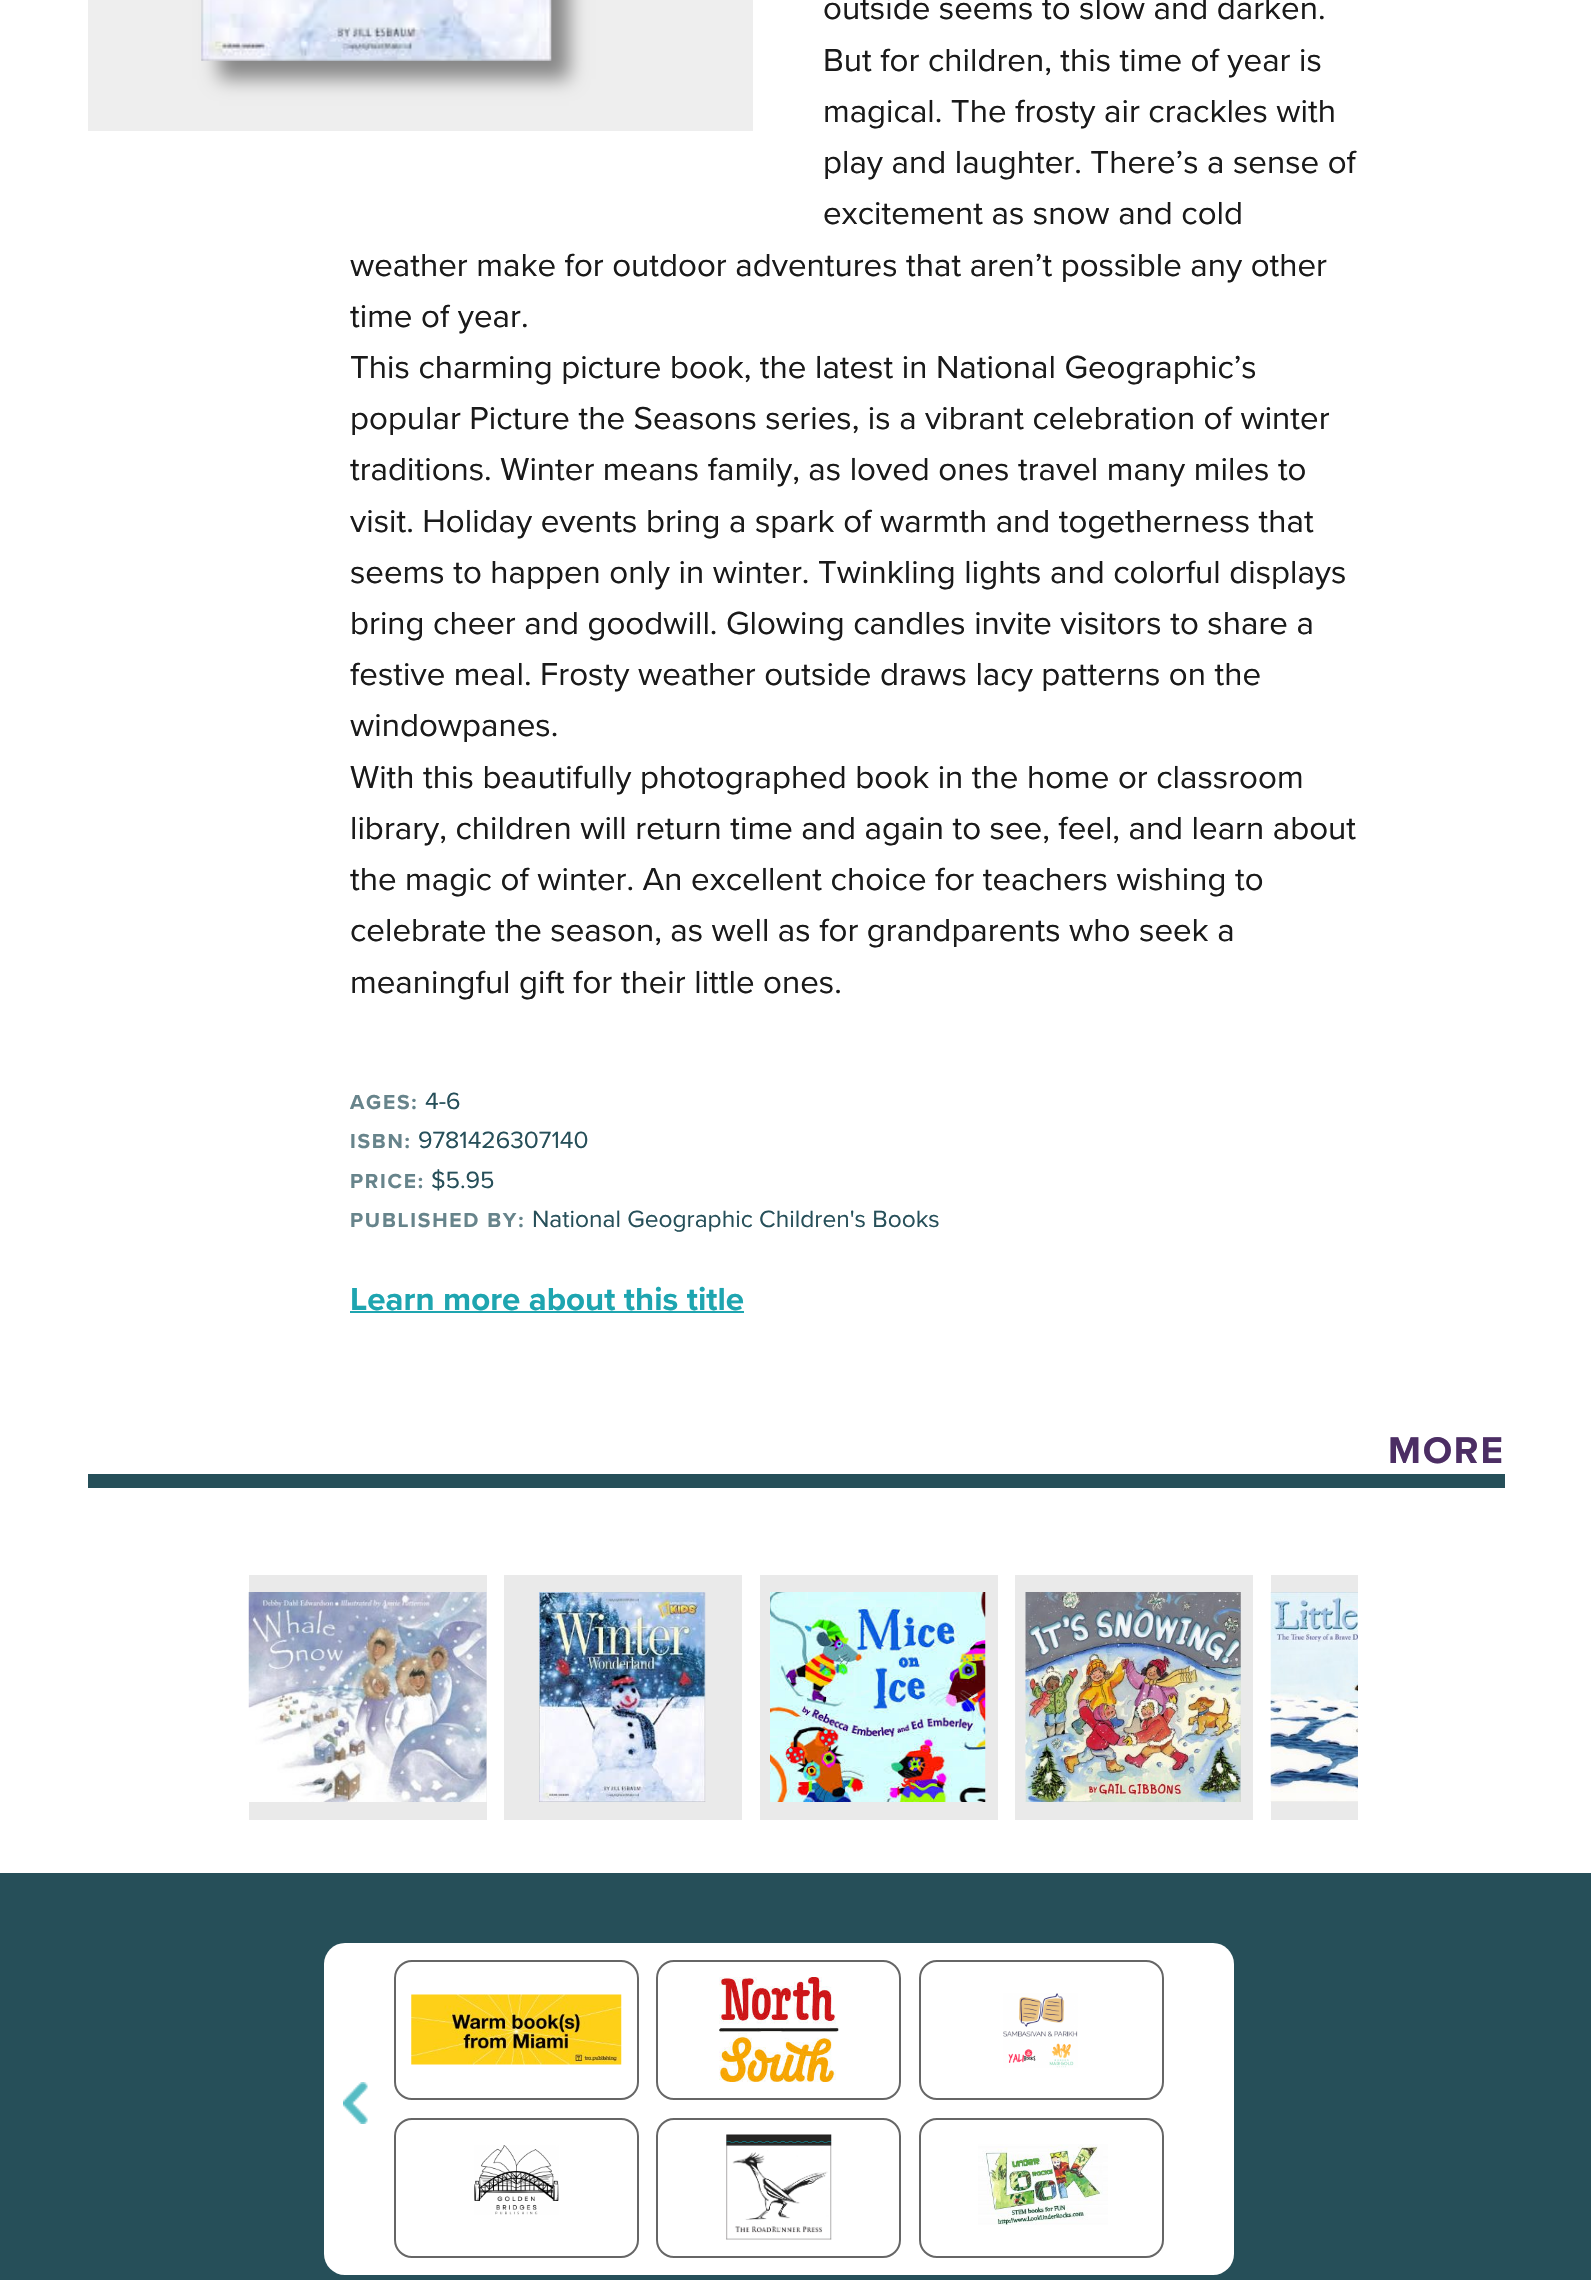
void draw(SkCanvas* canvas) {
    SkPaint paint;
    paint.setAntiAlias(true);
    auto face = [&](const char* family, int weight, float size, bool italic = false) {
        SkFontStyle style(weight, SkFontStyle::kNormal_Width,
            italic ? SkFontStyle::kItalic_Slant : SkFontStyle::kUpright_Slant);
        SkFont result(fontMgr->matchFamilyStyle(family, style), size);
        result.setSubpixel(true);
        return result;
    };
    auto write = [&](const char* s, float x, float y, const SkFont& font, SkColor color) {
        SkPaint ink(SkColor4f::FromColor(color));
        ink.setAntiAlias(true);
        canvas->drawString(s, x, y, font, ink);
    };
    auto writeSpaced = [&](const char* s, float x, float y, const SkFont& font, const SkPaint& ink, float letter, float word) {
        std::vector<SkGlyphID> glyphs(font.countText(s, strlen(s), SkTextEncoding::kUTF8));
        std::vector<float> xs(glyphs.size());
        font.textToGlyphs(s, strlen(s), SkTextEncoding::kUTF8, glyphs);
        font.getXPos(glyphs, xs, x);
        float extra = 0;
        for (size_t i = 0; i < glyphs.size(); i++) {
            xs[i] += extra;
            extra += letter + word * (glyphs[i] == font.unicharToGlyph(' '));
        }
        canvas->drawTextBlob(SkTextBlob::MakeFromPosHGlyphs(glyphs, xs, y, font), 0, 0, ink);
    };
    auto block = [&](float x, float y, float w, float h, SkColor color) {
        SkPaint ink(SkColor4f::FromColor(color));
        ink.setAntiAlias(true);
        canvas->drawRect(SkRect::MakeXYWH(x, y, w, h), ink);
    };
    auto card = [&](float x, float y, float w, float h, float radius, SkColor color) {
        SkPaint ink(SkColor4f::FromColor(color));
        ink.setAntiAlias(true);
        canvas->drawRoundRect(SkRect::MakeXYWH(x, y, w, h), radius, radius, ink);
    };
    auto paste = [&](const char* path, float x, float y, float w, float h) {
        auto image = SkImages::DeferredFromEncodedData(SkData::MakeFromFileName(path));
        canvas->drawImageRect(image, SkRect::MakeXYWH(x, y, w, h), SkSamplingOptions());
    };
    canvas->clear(SK_ColorWHITE);
    block(88, 0, 665, 131, SkColorSetRGB(238, 238, 238));
    paint.setColor(SkColorSetRGB(136, 136, 136));
    paint.setMaskFilter(SkMaskFilter::MakeBlur(kNormal_SkBlurStyle, 9));
    canvas->drawRect(SkRect::MakeXYWH(219, -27, 350, 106), paint);
    paint.setMaskFilter(nullptr);
    paste("pic1.png", 201, 0, 351, 61);
    auto kFont1 = face("Proxima Nova", 400, 33.05f);
    write("outside seems to slow and darken.", 823, 19, kFont1, SkColorSetRGB(26, 26, 26));
    write("But for children, this time of year is", 823, 71, kFont1, SkColorSetRGB(26, 26, 26));
    write("magical. The frosty air crackles with", 823, 122, kFont1, SkColorSetRGB(26, 26, 26));
    write("play and laughter. There’s a sense of", 823, 173, kFont1, SkColorSetRGB(26, 26, 26));
    write("excitement as snow and cold", 823, 224, kFont1, SkColorSetRGB(26, 26, 26));
    write("weather make for outdoor adventures that aren’t possible any other", 350, 276, kFont1, SkColorSetRGB(26, 26, 26));
    write("time of year.", 350, 327, kFont1, SkColorSetRGB(26, 26, 26));
    write("This charming picture book, the latest in National Geographic’s", 350, 378, kFont1, SkColorSetRGB(26, 26, 26));
    write("popular Picture the Seasons series, is a vibrant celebration of winter", 350, 429, kFont1, SkColorSetRGB(26, 26, 26));
    write("traditions. Winter means family, as loved ones travel many miles to", 350, 480, kFont1, SkColorSetRGB(26, 26, 26));
    write("visit. Holiday events bring a spark of warmth and togetherness that", 350, 532, kFont1, SkColorSetRGB(26, 26, 26));
    write("seems to happen only in winter. Twinkling lights and colorful displays", 350, 583, kFont1, SkColorSetRGB(26, 26, 26));
    write("bring cheer and goodwill. Glowing candles invite visitors to share a", 350, 634, kFont1, SkColorSetRGB(26, 26, 26));
    write("festive meal. Frosty weather outside draws lacy patterns on the", 350, 685, kFont1, SkColorSetRGB(26, 26, 26));
    write("windowpanes.", 350, 736, kFont1, SkColorSetRGB(26, 26, 26));
    write("With this beautifully photographed book in the home or classroom", 350, 788, kFont1, SkColorSetRGB(26, 26, 26));
    write("library, children will return time and again to see, feel, and learn about", 350, 839, kFont1, SkColorSetRGB(26, 26, 26));
    write("the magic of winter. An excellent choice for teachers wishing to", 350, 890, kFont1, SkColorSetRGB(26, 26, 26));
    write("celebrate the season, as well as for grandparents who seek a", 350, 941, kFont1, SkColorSetRGB(26, 26, 26));
    write("meaningful gift for their little ones.", 350, 993, kFont1, SkColorSetRGB(26, 26, 26));
    auto kFont2 = face("Proxima Nova", 700, 21);
    paint.setColor(SkColorSetRGB(103, 132, 139));
    writeSpaced("AGES:", 350, 1109, kFont2, paint, 1.75f, 0);
    auto kFont3 = face("Proxima Nova", 400, 24.5f);
    write("4-6", 425, 1109, kFont3, SkColorSetRGB(38, 79, 89));
    writeSpaced("ISBN:", 350, 1148, kFont2, paint, 1.75f, 0);
    write("9781426307140", 418, 1148, kFont3, SkColorSetRGB(38, 79, 89));
    writeSpaced("PRICE:", 350, 1188, kFont2, paint, 1.75f, 0);
    write("$5.95", 431, 1188, kFont3, SkColorSetRGB(38, 79, 89));
    writeSpaced("PUBLISHED BY:", 350, 1227, kFont2, paint, 1.75f, 0);
    write("National Geographic Children's Books", 532, 1227, kFont3, SkColorSetRGB(38, 79, 89));
    auto kFont4 = face("Proxima Nova", 700, 33.05f);
    write("Learn more about this title", 350, 1310, kFont4, SkColorSetRGB(30, 165, 176));
    block(350, 1311, 394, 2, SkColorSetRGB(30, 165, 176));
    auto kFont5 = face("Proxima Nova", 700, 38.5f);
    paint.setColor(SkColorSetRGB(76, 46, 100));
    writeSpaced("MORE", 1388, 1463, kFont5, paint, 1.75f, 0);
    block(88, 1474, 1417, 14, SkColorSetRGB(38, 79, 89));
    block(249, 1575, 238, 245, SkColorSetRGB(234, 234, 234));
    paste("pic2.png", 248, 1592, 239, 210);
    block(504, 1575, 238, 245, SkColorSetRGB(234, 234, 234));
    paste("pic3.png", 539, 1592, 167, 210);
    block(760, 1575, 238, 245, SkColorSetRGB(234, 234, 234));
    paste("pic4.png", 770, 1592, 216, 210);
    block(1015, 1575, 238, 245, SkColorSetRGB(234, 234, 234));
    paste("pic5.png", 1025, 1592, 216, 210);
    block(1271, 1575, 87, 245, SkColorSetRGB(234, 234, 234));
    paste("pic6.png", 1270, 1592, 88, 210);
    block(0, 1873, 1591, 407, SkColorSetRGB(38, 79, 89));
    card(324, 1943, 910, 332, 21, SK_ColorWHITE);
    paste("pic7.png", 343, 2082, 25, 42);
    paint.setStyle(SkPaint::kStroke_Style);
    paint.setStrokeWidth(2);
    paint.setColor(SkColorSetRGB(102, 102, 102));
    canvas->drawRoundRect(SkRect::MakeXYWH(395, 1961, 243, 138), 17, 17, paint);
    paste("pic8.png", 411, 1994, 211, 71);
    canvas->drawRoundRect(SkRect::MakeXYWH(395, 2119, 243, 138), 17, 17, paint);
    paste("pic9.png", 474, 2145, 85, 70);
    canvas->drawRoundRect(SkRect::MakeXYWH(657, 1961, 243, 138), 17, 17, paint);
    paste("pic10.png", 719, 1977, 120, 105);
    canvas->drawRoundRect(SkRect::MakeXYWH(657, 2119, 243, 138), 17, 17, paint);
    paste("pic11.png", 726, 2134, 106, 106);
    canvas->drawRoundRect(SkRect::MakeXYWH(920, 1961, 243, 138), 17, 17, paint);
    paste("pic12.png", 1003, 1993, 75, 75);
    canvas->drawRoundRect(SkRect::MakeXYWH(920, 2119, 243, 138), 17, 17, paint);
    paste("pic13.png", 978, 2144, 130, 81);
}
